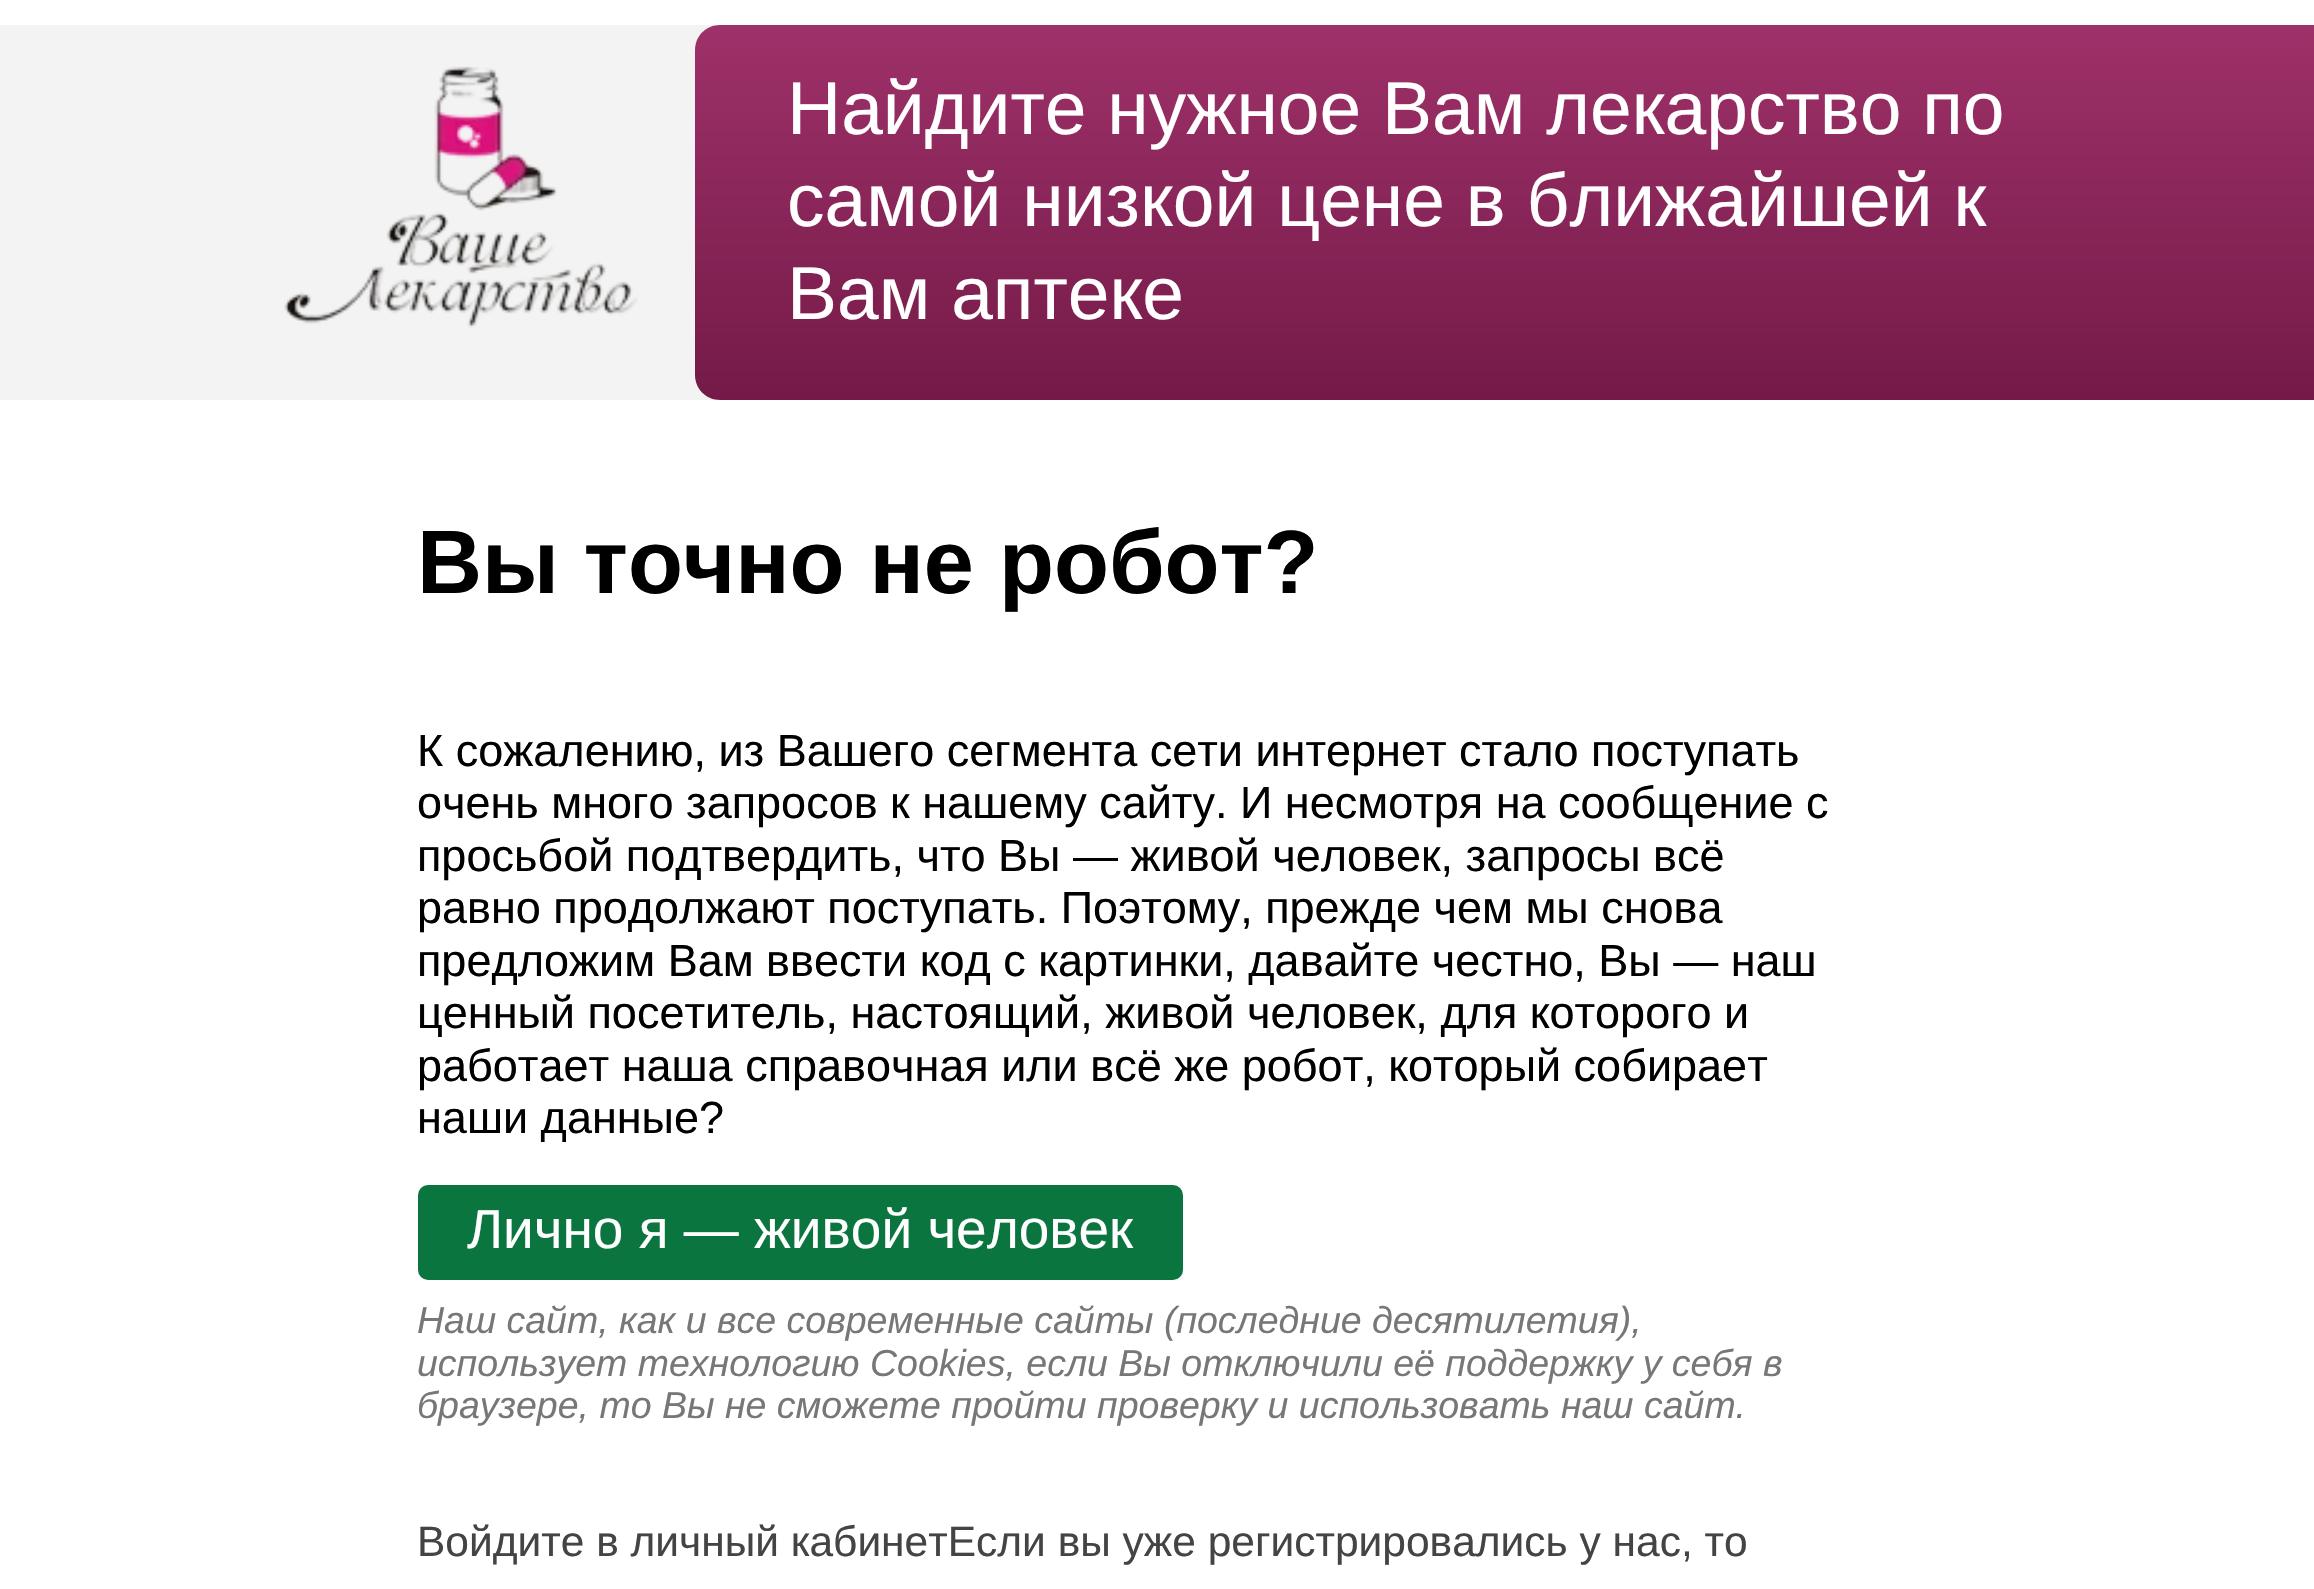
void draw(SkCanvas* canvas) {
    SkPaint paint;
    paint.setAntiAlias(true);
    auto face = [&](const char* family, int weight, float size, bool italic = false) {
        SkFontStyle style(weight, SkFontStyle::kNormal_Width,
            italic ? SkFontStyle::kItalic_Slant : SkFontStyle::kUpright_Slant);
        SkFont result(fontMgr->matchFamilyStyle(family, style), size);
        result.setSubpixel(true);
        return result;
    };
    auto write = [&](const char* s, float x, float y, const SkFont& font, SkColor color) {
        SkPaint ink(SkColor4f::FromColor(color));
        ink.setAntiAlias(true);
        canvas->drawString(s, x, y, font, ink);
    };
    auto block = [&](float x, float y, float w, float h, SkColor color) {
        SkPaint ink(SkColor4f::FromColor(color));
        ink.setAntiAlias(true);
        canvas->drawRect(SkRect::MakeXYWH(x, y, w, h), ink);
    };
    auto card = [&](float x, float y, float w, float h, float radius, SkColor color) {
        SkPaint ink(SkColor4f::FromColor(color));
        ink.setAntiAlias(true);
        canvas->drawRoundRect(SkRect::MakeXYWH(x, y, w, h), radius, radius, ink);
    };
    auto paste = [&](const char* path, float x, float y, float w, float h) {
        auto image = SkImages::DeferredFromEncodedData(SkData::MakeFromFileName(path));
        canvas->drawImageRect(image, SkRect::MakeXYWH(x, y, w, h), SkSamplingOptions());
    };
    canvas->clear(SK_ColorWHITE);
    block(0, 25, 720, 375, SkColorSetRGB(243, 243, 243));
    paste("pic1.png", 284, 66, 354, 262);
    {
        const SkColor colors[] = {SkColorSetRGB(158, 49, 105), SkColorSetRGB(116, 26, 72)};
        const float stops[] = {0, 1};
        const SkPoint ends[] = {{1505, 25}, {1505, 400}};
        paint.setShader(SkGradientShader::MakeLinear(ends, colors, stops, 2, SkTileMode::kClamp));
        paint.setAlpha(255);
    }
    canvas->drawPath(SkPathBuilder().moveTo(720, 25).lineTo(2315, 25).lineTo(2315, 400).lineTo(720, 400).cubicTo(706, 400, 695, 389, 695, 375).lineTo(695, 50).cubicTo(695, 36, 706, 25, 720, 25).close().detach(), paint);
    auto kFont1 = face("Liberation Sans", 400, 75);
    write("Найдите нужное Вам лекарство по", 787, 134, kFont1, SK_ColorWHITE);
    write("самой низкой цене в ближайшей к", 787, 226, kFont1, SK_ColorWHITE);
    write("Вам аптеке", 787, 319, kFont1, SK_ColorWHITE);
    auto kFont2 = face("Liberation Sans", 700, 90);
    write("Вы точно не робот?", 417, 593, kFont2, SK_ColorBLACK);
    auto kFont3 = face("Liberation Sans", 400, 45);
    write("К сожалению, из Вашего сегмента сети интернет стало поступать", 417, 766, kFont3, SK_ColorBLACK);
    write("очень много запросов к нашему сайту. И несмотря на сообщение с", 417, 818, kFont3, SK_ColorBLACK);
    write("просьбой подтвердить, что Вы — живой человек, запросы всё", 417, 871, kFont3, SK_ColorBLACK);
    write("равно продолжают поступать. Поэтому, прежде чем мы снова", 417, 923, kFont3, SK_ColorBLACK);
    write("предложим Вам ввести код с картинки, давайте честно, Вы — наш", 417, 976, kFont3, SK_ColorBLACK);
    write("ценный посетитель, настоящий, живой человек, для которого и", 417, 1028, kFont3, SK_ColorBLACK);
    write("работает наша справочная или всё же робот, который собирает", 417, 1081, kFont3, SK_ColorBLACK);
    write("наши данные?", 417, 1133, kFont3, SK_ColorBLACK);
    card(418, 1185, 765, 95, 10, SkColorSetRGB(11, 117, 64));
    auto kFont4 = face("Liberation Sans", 400, 55);
    write("Лично я — живой человек", 467, 1248, kFont4, SK_ColorWHITE);
    auto kFont5 = face("Liberation Sans", 400, 37.5f, true);
    write("Наш сайт, как и все современные сайты (последние десятилетия),", 417, 1333, kFont5, SkColorSetRGB(119, 119, 119));
    write("использует технологию Cookies, если Вы отключили её поддержку у себя в", 417, 1376, kFont5, SkColorSetRGB(119, 119, 119));
    write("браузере, то Вы не сможете пройти проверку и использовать наш сайт.", 417, 1418, kFont5, SkColorSetRGB(119, 119, 119));
    auto kFont6 = face("Liberation Sans", 400, 42.5f);
    write("Войдите в личный кабинетЕсли вы уже регистрировались у нас, то", 417, 1556, kFont6, SkColorSetRGB(68, 68, 68));
}
